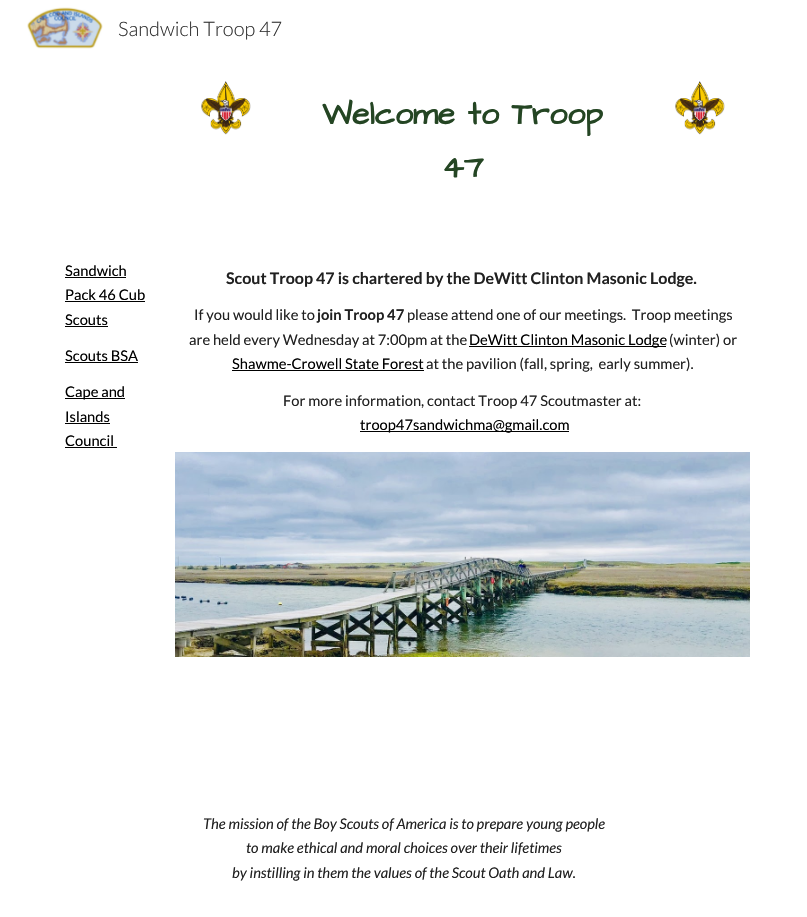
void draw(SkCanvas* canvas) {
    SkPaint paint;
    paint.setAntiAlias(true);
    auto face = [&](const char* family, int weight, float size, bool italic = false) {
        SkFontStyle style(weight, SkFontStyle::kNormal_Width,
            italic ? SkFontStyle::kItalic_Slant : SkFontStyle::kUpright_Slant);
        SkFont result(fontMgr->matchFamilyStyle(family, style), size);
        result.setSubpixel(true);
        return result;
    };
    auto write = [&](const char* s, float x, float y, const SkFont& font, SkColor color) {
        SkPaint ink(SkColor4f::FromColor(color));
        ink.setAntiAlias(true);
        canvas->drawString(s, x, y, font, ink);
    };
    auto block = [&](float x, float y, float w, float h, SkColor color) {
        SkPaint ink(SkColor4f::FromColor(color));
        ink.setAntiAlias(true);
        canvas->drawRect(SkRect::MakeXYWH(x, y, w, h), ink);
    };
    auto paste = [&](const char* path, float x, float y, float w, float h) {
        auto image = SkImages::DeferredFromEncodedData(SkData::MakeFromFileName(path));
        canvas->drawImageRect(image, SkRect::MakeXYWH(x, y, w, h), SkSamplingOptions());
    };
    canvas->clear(SK_ColorWHITE);
    paste("pic1.png", 27, 7, 76, 42);
    auto kFont1 = face("Lato", 300, 20);
    write("Sandwich Troop 47", 118, 36, kFont1, SkColorSetRGB(51, 51, 51));
    paste("pic2.png", 201, 81, 50, 54);
    auto kFont2 = face("Architects Daughter", 700, 32);
    write("Welcome to Troop", 322, 124, kFont2, SkColorSetRGB(36, 69, 35));
    write("47", 442, 177, kFont2, SkColorSetRGB(36, 69, 35));
    paste("pic3.png", 675, 81, 50, 54);
    auto kFont3 = face("Lato", 400, 14.7f);
    write("Sandwich", 65, 276, kFont3, SK_ColorBLACK);
    block(65, 277, 61, 1, SK_ColorBLACK);
    write("Pack 46 Cub", 65, 300, kFont3, SK_ColorBLACK);
    block(65, 301, 80, 1, SK_ColorBLACK);
    write("Scouts", 65, 325, kFont3, SK_ColorBLACK);
    block(65, 326, 43, 1, SK_ColorBLACK);
    write("Scouts BSA", 65, 361, kFont3, SK_ColorBLACK);
    block(65, 362, 73, 1, SK_ColorBLACK);
    block(65, 398, 60, 1, SK_ColorBLACK);
    write("Cape and", 65, 397, kFont3, SK_ColorBLACK);
    write("Islands", 65, 422, kFont3, SK_ColorBLACK);
    block(65, 423, 45, 1, SK_ColorBLACK);
    write("Council", 65, 446, kFont3, SK_ColorBLACK);
    block(65, 447, 52, 1, SK_ColorBLACK);
    auto kFont4 = face("Lato", 700, 16);
    write("Scout Troop 47 is chartered by the DeWitt Clinton Masonic Lodge.", 226, 284, kFont4, SkColorSetRGB(33, 33, 33));
    write("If you would like to", 194, 320, kFont3, SkColorSetRGB(33, 33, 33));
    auto kFont5 = face("Lato", 700, 14.7f);
    write("join Troop 47", 317, 320, kFont5, SkColorSetRGB(33, 33, 33));
    write("please attend one of our meetings.  Troop meetings", 407, 320, kFont3, SkColorSetRGB(33, 33, 33));
    write("are held every Wednesday at 7:00pm at the", 189, 345, kFont3, SkColorSetRGB(33, 33, 33));
    block(469, 346, 197, 1, SK_ColorBLACK);
    write("DeWitt Clinton Masonic Lodge", 469, 345, kFont3, SK_ColorBLACK);
    write("(winter) or", 669, 345, kFont3, SkColorSetRGB(33, 33, 33));
    write("Shawme-Crowell State Forest", 232, 369, kFont3, SK_ColorBLACK);
    block(232, 370, 192, 1, SK_ColorBLACK);
    write("at the pavilion (fall, spring,  early summer).", 426, 369, kFont3, SkColorSetRGB(33, 33, 33));
    write("For more information, contact Troop 47 Scoutmaster at:", 283, 406, kFont3, SkColorSetRGB(33, 33, 33));
    block(360, 431, 209, 1, SK_ColorBLACK);
    write("troop47sandwichma@gmail.com", 360, 430, kFont3, SK_ColorBLACK);
    paste("pic4.png", 175, 452, 575, 205);
    auto kFont6 = face("Lato", 400, 14.7f, true);
    write("The mission of the Boy Scouts of America is to prepare young people", 203, 829, kFont6, SkColorSetRGB(33, 33, 33));
    write("to make ethical and moral choices over their lifetimes", 246, 853, kFont6, SkColorSetRGB(33, 33, 33));
    write("by instilling in them the values of the Scout Oath and Law.", 232, 878, kFont6, SkColorSetRGB(33, 33, 33));
}
